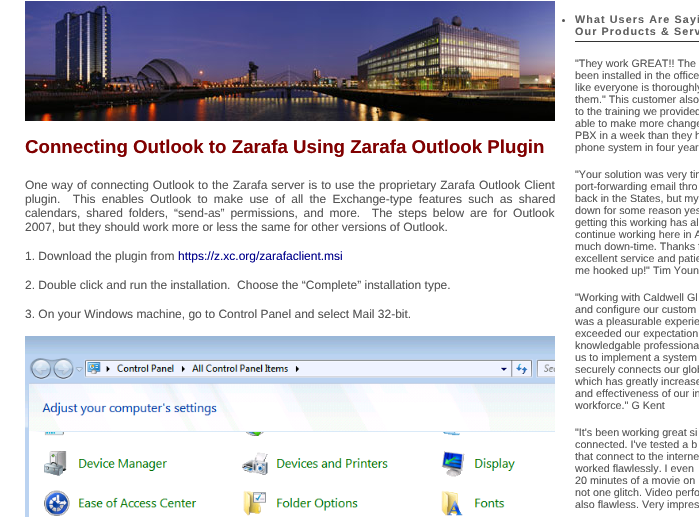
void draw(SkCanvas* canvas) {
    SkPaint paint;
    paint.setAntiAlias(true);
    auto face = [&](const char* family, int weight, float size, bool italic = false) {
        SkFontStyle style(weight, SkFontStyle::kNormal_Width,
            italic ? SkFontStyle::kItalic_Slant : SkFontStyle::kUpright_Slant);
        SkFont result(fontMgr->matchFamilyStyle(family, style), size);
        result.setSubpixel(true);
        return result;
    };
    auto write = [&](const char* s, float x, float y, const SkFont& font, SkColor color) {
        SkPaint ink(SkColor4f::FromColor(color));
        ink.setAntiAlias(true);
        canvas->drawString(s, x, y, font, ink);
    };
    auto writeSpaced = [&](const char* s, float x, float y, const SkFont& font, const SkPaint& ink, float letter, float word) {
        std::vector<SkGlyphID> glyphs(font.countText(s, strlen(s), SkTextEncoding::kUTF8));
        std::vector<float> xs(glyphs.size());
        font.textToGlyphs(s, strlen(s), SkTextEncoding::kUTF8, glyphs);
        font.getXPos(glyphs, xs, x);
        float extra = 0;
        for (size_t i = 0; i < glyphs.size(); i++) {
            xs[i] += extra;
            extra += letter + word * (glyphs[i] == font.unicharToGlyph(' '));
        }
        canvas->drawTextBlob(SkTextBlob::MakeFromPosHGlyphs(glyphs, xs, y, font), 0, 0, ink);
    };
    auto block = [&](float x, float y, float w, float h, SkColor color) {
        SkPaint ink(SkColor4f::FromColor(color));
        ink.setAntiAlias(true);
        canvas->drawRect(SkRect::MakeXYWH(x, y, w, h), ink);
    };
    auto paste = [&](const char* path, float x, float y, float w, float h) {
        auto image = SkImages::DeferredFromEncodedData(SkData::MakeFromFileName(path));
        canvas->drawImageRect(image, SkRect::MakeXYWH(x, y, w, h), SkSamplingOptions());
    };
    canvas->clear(SK_ColorWHITE);
    paste("pic1.png", 25, 1, 530, 120);
    auto kFont1 = face("Liberation Sans", 700, 18.7f);
    write("Connecting Outlook to Zarafa Using Zarafa Outlook Plugin", 25, 153, kFont1, SkColorSetRGB(128, 0, 0));
    auto kFont2 = face("Liberation Sans", 400, 12);
    paint.setColor(SkColorSetRGB(84, 84, 84));
    writeSpaced("One way of connecting Outlook to the Zarafa server is to use the proprietary Zarafa Outlook Client", 25, 189, kFont2, paint, 0, 0.6f);
    writeSpaced("plugin.  This enables Outlook to make use of all the Exchange-type features such as shared", 25, 203, kFont2, paint, 0, 2.9f);
    writeSpaced("calendars, shared folders, “send-as” permissions, and more.  The steps below are for Outlook", 25, 217, kFont2, paint, 0, 2.5f);
    write("2007, but they should work more or less the same for other versions of Outlook.", 25, 231, kFont2, SkColorSetRGB(84, 84, 84));
    write("1. Download the plugin from", 25, 260, kFont2, SkColorSetRGB(84, 84, 84));
    write("https://z.xc.org/zarafaclient.msi", 178, 260, kFont2, SkColorSetRGB(0, 0, 139));
    write("2. Double click and run the installation.  Choose the “Complete” installation type.", 25, 289, kFont2, SkColorSetRGB(84, 84, 84));
    write("3. On your Windows machine, go to Control Panel and select Mail 32-bit.", 25, 318, kFont2, SkColorSetRGB(84, 84, 84));
    paste("pic2.png", 25, 336, 530, 181);
    canvas->drawCircle(563.5f, 20.5f, 1.5f, paint);
    block(575, 41, 124, 1, SkColorSetRGB(51, 51, 51));
    auto kFont3 = face("Liberation Sans", 700, 10.75f);
    paint.setColor(SkColorSetRGB(95, 95, 95));
    writeSpaced("What Users Are Sayi", 575, 23, kFont3, paint, 1.1f, 0);
    writeSpaced("Our Products & Serv", 575, 35, kFont3, paint, 1.1f, 0);
    auto kFont4 = face("Liberation Sans", 400, 10.75f);
    write("\"They work GREAT!! The", 575, 67, kFont4, SkColorSetRGB(84, 84, 84));
    write("been installed in the office", 575, 79, kFont4, SkColorSetRGB(84, 84, 84));
    write("like everyone is thoroughly", 575, 91, kFont4, SkColorSetRGB(84, 84, 84));
    write("them.\" This customer also", 575, 103, kFont4, SkColorSetRGB(84, 84, 84));
    write("to the training we provided", 575, 115, kFont4, SkColorSetRGB(84, 84, 84));
    write("able to make more change", 575, 127, kFont4, SkColorSetRGB(84, 84, 84));
    write("PBX in a week than they h", 575, 139, kFont4, SkColorSetRGB(84, 84, 84));
    write("phone system in four year", 575, 151, kFont4, SkColorSetRGB(84, 84, 84));
    write("\"Your solution was very tim", 575, 178, kFont4, SkColorSetRGB(84, 84, 84));
    write("port-forwarding email thro", 575, 190, kFont4, SkColorSetRGB(84, 84, 84));
    write("back in the States, but my", 575, 202, kFont4, SkColorSetRGB(84, 84, 84));
    write("down for some reason yes", 575, 214, kFont4, SkColorSetRGB(84, 84, 84));
    write("getting this working has all", 575, 226, kFont4, SkColorSetRGB(84, 84, 84));
    write("continue working here in A", 575, 238, kFont4, SkColorSetRGB(84, 84, 84));
    write("much down-time. Thanks f", 575, 250, kFont4, SkColorSetRGB(84, 84, 84));
    write("excellent service and patie", 575, 262, kFont4, SkColorSetRGB(84, 84, 84));
    write("me hooked up!\" Tim Youn", 575, 274, kFont4, SkColorSetRGB(84, 84, 84));
    write("\"Working with Caldwell Gl", 575, 301, kFont4, SkColorSetRGB(84, 84, 84));
    write("and configure our custom", 575, 313, kFont4, SkColorSetRGB(84, 84, 84));
    write("was a pleasurable experie", 575, 325, kFont4, SkColorSetRGB(84, 84, 84));
    write("exceeded our expectation", 575, 337, kFont4, SkColorSetRGB(84, 84, 84));
    write("knowledgable professiona", 575, 349, kFont4, SkColorSetRGB(84, 84, 84));
    write("us to implement a system", 575, 361, kFont4, SkColorSetRGB(84, 84, 84));
    write("securely connects our glob", 575, 373, kFont4, SkColorSetRGB(84, 84, 84));
    write("which has greatly increase", 575, 385, kFont4, SkColorSetRGB(84, 84, 84));
    write("and effectiveness of our in", 575, 397, kFont4, SkColorSetRGB(84, 84, 84));
    write("workforce.\" G Kent", 575, 409, kFont4, SkColorSetRGB(84, 84, 84));
    write("\"It's been working great si", 575, 436, kFont4, SkColorSetRGB(84, 84, 84));
    write("connected. I've tested a b", 575, 448, kFont4, SkColorSetRGB(84, 84, 84));
    write("that connect to the interne", 575, 460, kFont4, SkColorSetRGB(84, 84, 84));
    write("worked flawlessly. I even", 575, 472, kFont4, SkColorSetRGB(84, 84, 84));
    write("20 minutes of a movie on", 575, 484, kFont4, SkColorSetRGB(84, 84, 84));
    write("not one glitch. Video perfo", 575, 496, kFont4, SkColorSetRGB(84, 84, 84));
    write("also flawless. Very impres", 575, 508, kFont4, SkColorSetRGB(84, 84, 84));
}
